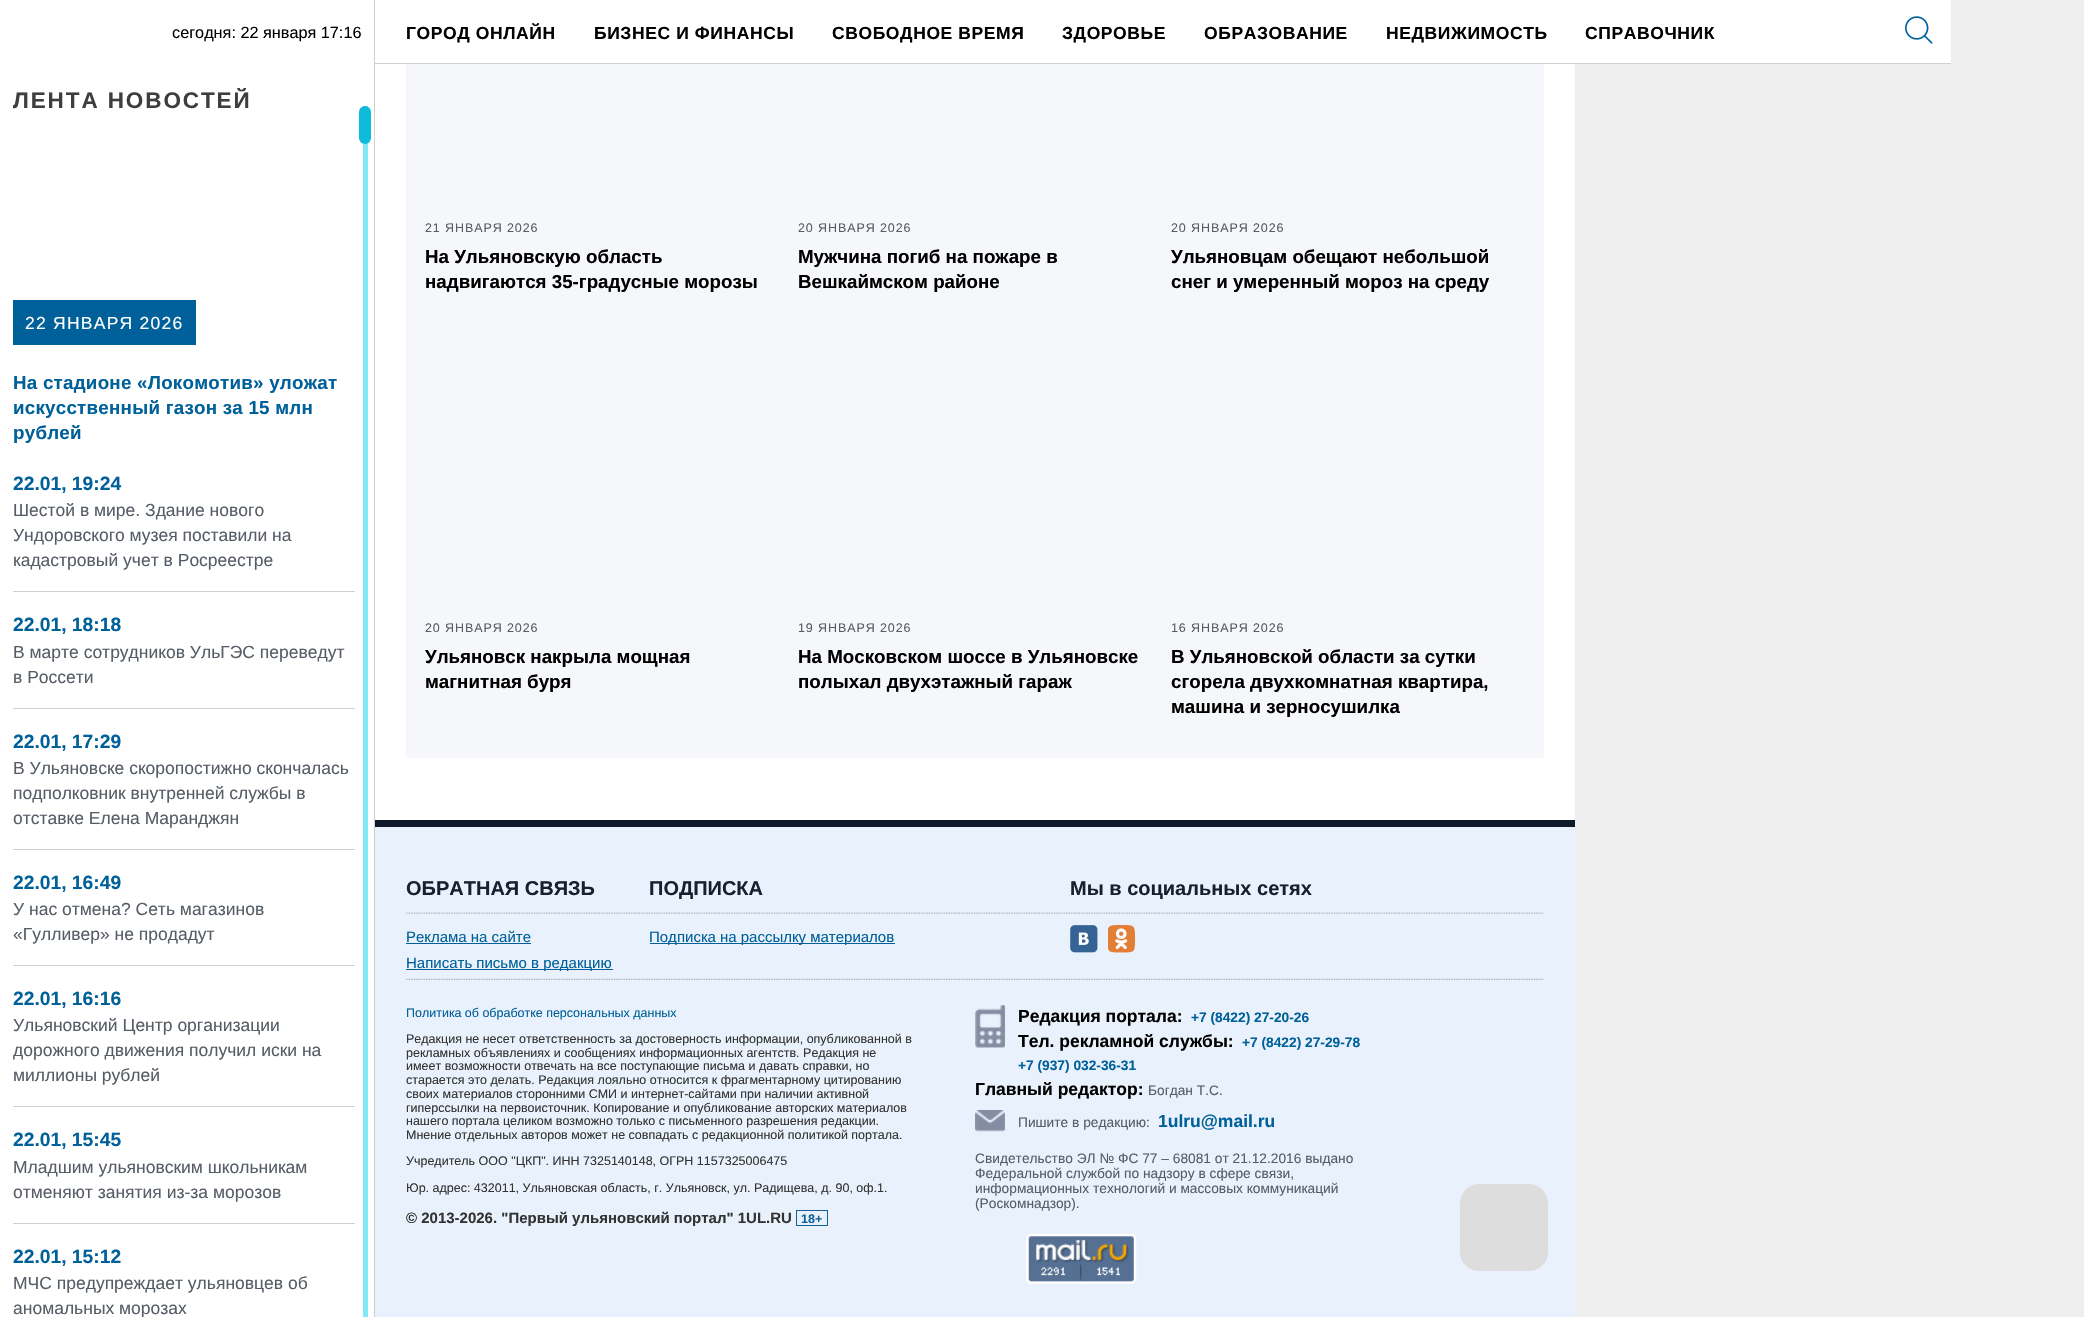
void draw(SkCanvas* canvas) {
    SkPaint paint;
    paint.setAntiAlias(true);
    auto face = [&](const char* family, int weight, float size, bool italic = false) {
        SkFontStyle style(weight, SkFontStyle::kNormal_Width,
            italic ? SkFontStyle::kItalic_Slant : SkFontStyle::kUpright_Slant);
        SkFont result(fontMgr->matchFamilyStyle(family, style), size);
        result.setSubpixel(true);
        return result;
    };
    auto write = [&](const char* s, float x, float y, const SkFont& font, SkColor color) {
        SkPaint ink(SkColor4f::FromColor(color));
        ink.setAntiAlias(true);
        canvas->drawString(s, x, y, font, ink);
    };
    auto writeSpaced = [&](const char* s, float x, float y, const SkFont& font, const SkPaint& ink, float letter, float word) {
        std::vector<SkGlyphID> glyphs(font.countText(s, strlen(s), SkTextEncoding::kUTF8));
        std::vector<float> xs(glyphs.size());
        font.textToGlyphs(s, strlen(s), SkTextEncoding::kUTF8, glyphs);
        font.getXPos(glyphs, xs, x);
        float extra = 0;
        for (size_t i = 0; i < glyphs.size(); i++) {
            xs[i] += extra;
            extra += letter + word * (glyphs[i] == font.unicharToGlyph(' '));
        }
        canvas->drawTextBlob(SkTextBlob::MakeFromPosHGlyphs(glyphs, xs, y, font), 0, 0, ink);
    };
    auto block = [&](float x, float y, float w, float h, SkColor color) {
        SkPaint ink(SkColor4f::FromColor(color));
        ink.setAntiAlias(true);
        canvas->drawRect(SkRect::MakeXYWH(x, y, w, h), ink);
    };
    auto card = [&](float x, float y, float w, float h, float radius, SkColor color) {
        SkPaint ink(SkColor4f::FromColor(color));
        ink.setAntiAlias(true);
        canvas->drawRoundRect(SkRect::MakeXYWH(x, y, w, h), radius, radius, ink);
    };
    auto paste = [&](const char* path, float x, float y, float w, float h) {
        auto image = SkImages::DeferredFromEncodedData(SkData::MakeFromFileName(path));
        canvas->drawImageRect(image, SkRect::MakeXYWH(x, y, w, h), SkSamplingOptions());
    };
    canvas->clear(SkColorSetRGB(239, 239, 239));
    block(0, 0, 1951, 64, SK_ColorWHITE);
    block(374, 0, 1, 64, SkColorSetRGB(209, 208, 208));
    auto kFont1 = face("Liberation Sans", 400, 16.25f);
    write("сегодня: 22 января 17:16", 172, 38, kFont1, SK_ColorBLACK);
    block(375, 63, 1576, 1, SkColorSetRGB(209, 208, 208));
    auto kFont2 = face("Liberation Sans", 700, 17.5f);
    paint.setColor(SK_ColorBLACK);
    writeSpaced("ГОРОД ОНЛАЙН", 406, 39, kFont2, paint, 0.6f, 0);
    writeSpaced("БИЗНЕС И ФИНАНСЫ", 594, 39, kFont2, paint, 0.6f, 0);
    writeSpaced("СВОБОДНОЕ ВРЕМЯ", 832, 39, kFont2, paint, 0.6f, 0);
    writeSpaced("ЗДОРОВЬЕ", 1062, 39, kFont2, paint, 0.6f, 0);
    writeSpaced("ОБРАЗОВАНИЕ", 1204, 39, kFont2, paint, 0.6f, 0);
    writeSpaced("НЕДВИЖИМОСТЬ", 1386, 39, kFont2, paint, 0.6f, 0);
    writeSpaced("СПРАВОЧНИК", 1585, 39, kFont2, paint, 0.6f, 0);
    paste("pic1.png", 1905, 16, 28, 28);
    block(0, 64, 374, 1253, SK_ColorWHITE);
    block(374, 64, 1, 1253, SkColorSetRGB(209, 208, 208));
    canvas->save();
    canvas->clipRect(SkRect::MakeXYWH(0, 88, 368, 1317));
    auto kFont3 = face("Liberation Sans", 700, 22.5f);
    paint.setColor(SkColorSetRGB(62, 62, 62));
    writeSpaced("ЛЕНТА НОВОСТЕЙ", 13, 108, kFont3, paint, 1.9f, 0);
    canvas->restore();
    block(13, 300, 183, 45, SkColorSetRGB(0, 96, 153));
    auto kFont4 = face("Liberation Sans", 400, 17.5f);
    paint.setColor(SK_ColorWHITE);
    writeSpaced("22 ЯНВАРЯ 2026", 25, 329, kFont4, paint, 1.25f, 0);
    auto kFont5 = face("Liberation Sans", 700, 18.75f);
    paint.setColor(SkColorSetRGB(0, 96, 153));
    writeSpaced("На стадионе «Локомотив» уложат", 13, 389, kFont5, paint, 0.25f, 0);
    writeSpaced("искусственный газон за 15 млн", 13, 414, kFont5, paint, 0.25f, 0);
    writeSpaced("рублей", 13, 439, kFont5, paint, 0.25f, 0);
    block(13, 591, 342, 1, SkColorSetRGB(209, 208, 208));
    auto kFont6 = face("Liberation Sans", 700, 19.25f);
    write("22.01, 19:24", 13, 490, kFont6, SkColorSetRGB(0, 96, 153));
    write("Шестой в мире. Здание нового", 13, 516, kFont4, SkColorSetRGB(86, 93, 102));
    write("Ундоровского музея поставили на", 13, 541, kFont4, SkColorSetRGB(86, 93, 102));
    write("кадастровый учет в Росреестре", 13, 566, kFont4, SkColorSetRGB(86, 93, 102));
    block(13, 708, 342, 1, SkColorSetRGB(209, 208, 208));
    write("22.01, 18:18", 13, 631, kFont6, SkColorSetRGB(0, 96, 153));
    write("В марте сотрудников УльГЭС переведут", 13, 658, kFont4, SkColorSetRGB(86, 93, 102));
    write("в Россети", 13, 683, kFont4, SkColorSetRGB(86, 93, 102));
    block(13, 849, 342, 1, SkColorSetRGB(209, 208, 208));
    write("22.01, 17:29", 13, 748, kFont6, SkColorSetRGB(0, 96, 153));
    write("В Ульяновске скоропостижно скончалась", 13, 774, kFont4, SkColorSetRGB(86, 93, 102));
    write("подполковник внутренней службы в", 13, 799, kFont4, SkColorSetRGB(86, 93, 102));
    write("отставке Елена Маранджян", 13, 824, kFont4, SkColorSetRGB(86, 93, 102));
    block(13, 965, 342, 1, SkColorSetRGB(209, 208, 208));
    write("22.01, 16:49", 13, 889, kFont6, SkColorSetRGB(0, 96, 153));
    write("У нас отмена? Сеть магазинов", 13, 915, kFont4, SkColorSetRGB(86, 93, 102));
    write("«Гулливер» не продадут", 13, 940, kFont4, SkColorSetRGB(86, 93, 102));
    block(13, 1106, 342, 1, SkColorSetRGB(209, 208, 208));
    write("22.01, 16:16", 13, 1005, kFont6, SkColorSetRGB(0, 96, 153));
    write("Ульяновский Центр организации", 13, 1031, kFont4, SkColorSetRGB(86, 93, 102));
    write("дорожного движения получил иски на", 13, 1056, kFont4, SkColorSetRGB(86, 93, 102));
    write("миллионы рублей", 13, 1081, kFont4, SkColorSetRGB(86, 93, 102));
    block(13, 1223, 342, 1, SkColorSetRGB(209, 208, 208));
    write("22.01, 15:45", 13, 1146, kFont6, SkColorSetRGB(0, 96, 153));
    write("Младшим ульяновским школьникам", 13, 1173, kFont4, SkColorSetRGB(86, 93, 102));
    write("отменяют занятия из-за морозов", 13, 1198, kFont4, SkColorSetRGB(86, 93, 102));
    write("22.01, 15:12", 13, 1263, kFont6, SkColorSetRGB(0, 96, 153));
    write("МЧС предупреждает ульяновцев об", 13, 1289, kFont4, SkColorSetRGB(86, 93, 102));
    write("аномальных морозах", 13, 1314, kFont4, SkColorSetRGB(86, 93, 102));
    block(363, 106, 5, 1211, SkColorSetRGB(129, 231, 249));
    card(359, 106, 12, 38, 6, SkColorSetRGB(15, 187, 218));
    block(375, 64, 1200, 756, SK_ColorWHITE);
    block(406, 64, 1138, 694, SkColorSetRGB(245, 247, 250));
    auto kFont7 = face("Liberation Sans", 400, 12.5f);
    paint.setColor(SkColorSetRGB(86, 93, 102));
    writeSpaced("21 ЯНВАРЯ 2026", 425, 232, kFont7, paint, 0.9f, 0);
    write("На Ульяновскую область", 425, 263, kFont5, SK_ColorBLACK);
    write("надвигаются 35-градусные морозы", 425, 288, kFont5, SK_ColorBLACK);
    writeSpaced("20 ЯНВАРЯ 2026", 798, 232, kFont7, paint, 0.9f, 0);
    write("Мужчина погиб на пожаре в", 798, 263, kFont5, SK_ColorBLACK);
    write("Вешкаймском районе", 798, 288, kFont5, SK_ColorBLACK);
    writeSpaced("20 ЯНВАРЯ 2026", 1171, 232, kFont7, paint, 0.9f, 0);
    write("Ульяновцам обещают небольшой", 1171, 263, kFont5, SK_ColorBLACK);
    write("снег и умеренный мороз на среду", 1171, 288, kFont5, SK_ColorBLACK);
    writeSpaced("20 ЯНВАРЯ 2026", 425, 632, kFont7, paint, 0.9f, 0);
    write("Ульяновск накрыла мощная", 425, 663, kFont5, SK_ColorBLACK);
    write("магнитная буря", 425, 688, kFont5, SK_ColorBLACK);
    writeSpaced("19 ЯНВАРЯ 2026", 798, 632, kFont7, paint, 0.9f, 0);
    write("На Московском шоссе в Ульяновске", 798, 663, kFont5, SK_ColorBLACK);
    write("полыхал двухэтажный гараж", 798, 688, kFont5, SK_ColorBLACK);
    writeSpaced("16 ЯНВАРЯ 2026", 1171, 632, kFont7, paint, 0.9f, 0);
    write("В Ульяновской области за сутки", 1171, 663, kFont5, SK_ColorBLACK);
    write("сгорела двухкомнатная квартира,", 1171, 688, kFont5, SK_ColorBLACK);
    write("машина и зерносушилка", 1171, 713, kFont5, SK_ColorBLACK);
    block(375, 827, 1200, 490, SkColorSetRGB(233, 242, 252));
    block(375, 820, 1200, 7, SkColorSetRGB(15, 25, 43));
    paste("pic2.png", 406, 912, 1138, 68);
    auto kFont8 = face("Liberation Sans", 700, 20);
    write("ОБРАТНАЯ СВЯЗЬ", 406, 895, kFont8, SkColorSetRGB(25, 31, 46));
    auto kFont9 = face("Liberation Sans", 400, 15);
    write("Реклама на сайте", 406, 942, kFont9, SkColorSetRGB(0, 96, 153));
    block(406, 943, 125, 1, SkColorSetRGB(0, 96, 153));
    block(406, 969, 207, 1, SkColorSetRGB(0, 96, 153));
    write("Написать письмо в редакцию", 406, 968, kFont9, SkColorSetRGB(0, 96, 153));
    write("ПОДПИСКА", 649, 895, kFont8, SkColorSetRGB(25, 31, 46));
    block(650, 943, 245, 1, SkColorSetRGB(0, 96, 153));
    write("Подписка на рассылку материалов", 649, 942, kFont9, SkColorSetRGB(0, 96, 153));
    write("Мы в социальных сетях", 1070, 895, kFont8, SkColorSetRGB(25, 31, 46));
    paste("pic3.png", 1070, 925, 28, 28);
    paste("pic4.png", 1108, 925, 27, 28);
    write("Политика об обработке персональных данных", 406, 1017, kFont7, SkColorSetRGB(0, 96, 153));
    write("Редакция не несет ответственность за достоверность информации, опубликованной в", 406, 1043, kFont7, SkColorSetRGB(51, 51, 51));
    write("рекламных объявлениях и сообщениях информационных агентств. Редакция не", 406, 1057, kFont7, SkColorSetRGB(51, 51, 51));
    write("имеет возможности отвечать на все поступающие письма и давать справки, но", 406, 1070, kFont7, SkColorSetRGB(51, 51, 51));
    write("старается это делать. Редакция лояльно относится к фрагментарному цитированию", 406, 1084, kFont7, SkColorSetRGB(51, 51, 51));
    write("своих материалов сторонними СМИ и интернет-сайтами при наличии активной", 406, 1098, kFont7, SkColorSetRGB(51, 51, 51));
    write("гиперссылки на первоисточник. Копирование и опубликование авторских материалов", 406, 1112, kFont7, SkColorSetRGB(51, 51, 51));
    write("нашего портала целиком возможно только с письменного разрешения редакции.", 406, 1125, kFont7, SkColorSetRGB(51, 51, 51));
    write("Мнение отдельных авторов может не совпадать с редакционной политикой портала.", 406, 1139, kFont7, SkColorSetRGB(51, 51, 51));
    write("Учредитель ООО \"ЦКП\". ИНН 7325140148, ОГРН 1157325006475", 406, 1165, kFont7, SkColorSetRGB(51, 51, 51));
    write("Юр. адрес: 432011, Ульяновская область, г. Ульяновск, ул. Радищева, д. 90, оф.1.", 406, 1192, kFont7, SkColorSetRGB(51, 51, 51));
    auto kFont10 = face("Liberation Sans", 700, 15);
    write("© 2013-2026. \"Первый ульяновский портал\" 1UL.RU", 406, 1223, kFont10, SkColorSetRGB(51, 51, 51));
    paint.setStyle(SkPaint::kStroke_Style);
    paint.setStrokeWidth(1);
    paint.setColor(SkColorSetRGB(20, 96, 150));
    canvas->drawRect(SkRect::MakeXYWH(796.5f, 1210.5f, 31, 15), paint);
    auto kFont11 = face("Liberation Sans", 700, 12.5f);
    write("18+", 801, 1223, kFont11, SkColorSetRGB(20, 96, 150));
    paste("pic5.png", 975, 1005, 30, 43);
    write("Редакция портала:", 1018, 1022, kFont2, SK_ColorBLACK);
    auto kFont12 = face("Liberation Sans", 700, 13.75f);
    write("+7 (8422) 27-20-26", 1191, 1022, kFont12, SkColorSetRGB(0, 96, 153));
    write("Тел. рекламной службы:", 1018, 1047, kFont2, SK_ColorBLACK);
    write("+7 (8422) 27-29-78", 1242, 1047, kFont12, SkColorSetRGB(0, 96, 153));
    write("+7 (937) 032-36-31", 1018, 1070, kFont12, SkColorSetRGB(0, 96, 153));
    write("Главный редактор:", 975, 1095, kFont2, SK_ColorBLACK);
    auto kFont13 = face("Liberation Sans", 400, 13.75f);
    write("Богдан Т.С.", 1148, 1095, kFont13, SkColorSetRGB(86, 93, 102));
    paste("pic6.png", 975, 1110, 30, 22);
    write("Пишите в редакцию:", 1018, 1127, kFont13, SkColorSetRGB(86, 93, 102));
    write("1ulru@mail.ru", 1158, 1127, kFont2, SkColorSetRGB(0, 96, 153));
    write("Свидетельство ЭЛ № ФС 77 – 68081 от 21.12.2016 выдано", 975, 1163, kFont13, SkColorSetRGB(86, 93, 102));
    write("Федеральной службой по надзору в сфере связи,", 975, 1178, kFont13, SkColorSetRGB(86, 93, 102));
    write("информационных технологий и массовых коммуникаций", 975, 1193, kFont13, SkColorSetRGB(86, 93, 102));
    write("(Роскомнадзор).", 975, 1208, kFont13, SkColorSetRGB(86, 93, 102));
    paste("pic7.png", 1026, 1233, 111, 51);
    card(1460, 1184, 88, 87, 19, SkColorSetRGB(221, 221, 221));
}
